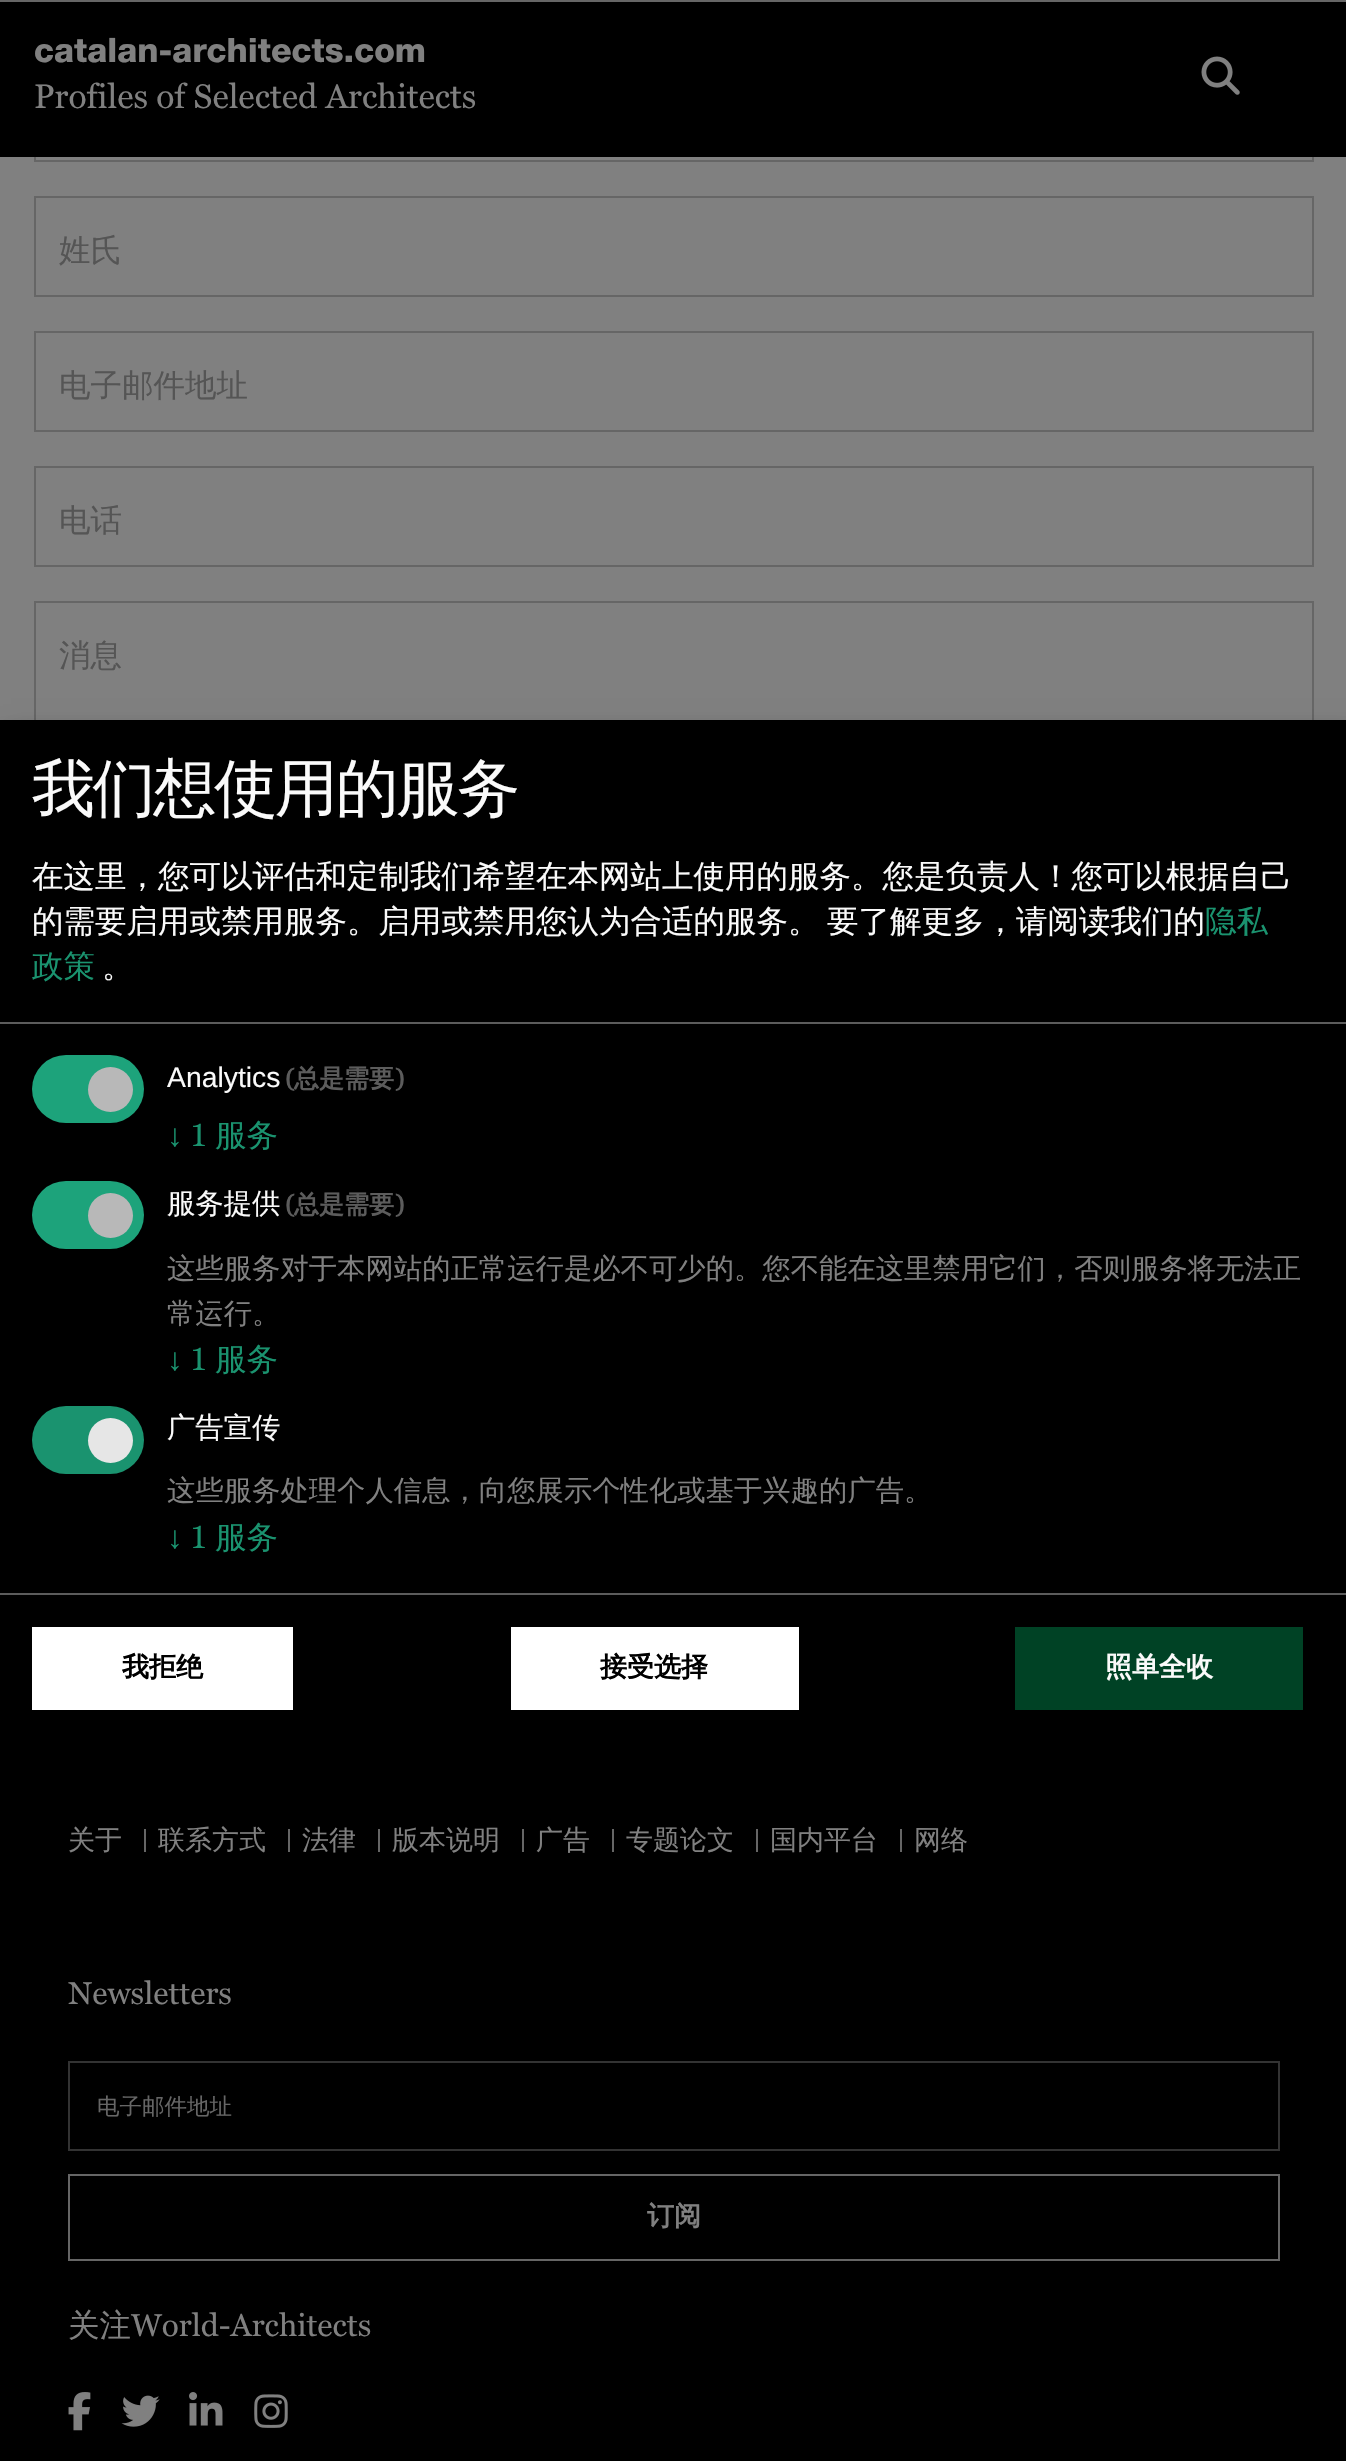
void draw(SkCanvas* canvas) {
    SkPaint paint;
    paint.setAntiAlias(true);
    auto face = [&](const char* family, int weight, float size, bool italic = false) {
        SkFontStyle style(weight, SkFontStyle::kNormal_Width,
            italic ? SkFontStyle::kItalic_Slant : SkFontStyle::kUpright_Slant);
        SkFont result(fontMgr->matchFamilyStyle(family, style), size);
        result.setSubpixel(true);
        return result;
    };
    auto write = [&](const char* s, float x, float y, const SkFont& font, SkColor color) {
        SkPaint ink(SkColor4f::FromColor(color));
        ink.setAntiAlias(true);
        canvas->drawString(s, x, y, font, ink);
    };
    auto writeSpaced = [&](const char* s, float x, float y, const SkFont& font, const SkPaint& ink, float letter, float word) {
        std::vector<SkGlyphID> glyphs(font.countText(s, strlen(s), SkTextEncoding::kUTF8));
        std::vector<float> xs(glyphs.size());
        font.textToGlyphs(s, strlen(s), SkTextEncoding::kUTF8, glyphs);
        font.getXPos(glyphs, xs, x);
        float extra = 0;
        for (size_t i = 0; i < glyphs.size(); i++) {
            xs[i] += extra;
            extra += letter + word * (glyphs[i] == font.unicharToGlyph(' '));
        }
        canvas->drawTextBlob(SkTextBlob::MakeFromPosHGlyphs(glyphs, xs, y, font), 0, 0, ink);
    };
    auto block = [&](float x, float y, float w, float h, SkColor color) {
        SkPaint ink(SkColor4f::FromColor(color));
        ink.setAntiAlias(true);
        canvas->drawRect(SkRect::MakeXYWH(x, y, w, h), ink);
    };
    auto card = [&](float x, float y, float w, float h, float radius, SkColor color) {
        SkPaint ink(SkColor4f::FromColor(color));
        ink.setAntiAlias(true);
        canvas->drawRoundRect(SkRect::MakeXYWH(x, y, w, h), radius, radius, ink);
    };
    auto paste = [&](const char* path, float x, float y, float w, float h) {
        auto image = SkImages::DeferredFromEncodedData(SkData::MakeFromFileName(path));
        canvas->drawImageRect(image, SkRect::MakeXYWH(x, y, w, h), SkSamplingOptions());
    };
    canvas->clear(SkColorSetRGB(128, 128, 128));
    paint.setStyle(SkPaint::kStroke_Style);
    paint.setStrokeWidth(2);
    paint.setColor(SkColorSetRGB(102, 102, 102));
    canvas->drawRect(SkRect::MakeXYWH(35, 62, 1278, 99), paint);
    block(0, 2, 1346, 155, SK_ColorBLACK);
    block(0, 0, 1346, 2, SkColorSetRGB(102, 102, 102));
    auto kFont1 = face("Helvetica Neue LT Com", 800, 33.75f);
    write("catalan-architects.com", 34, 62, kFont1, SkColorSetRGB(128, 128, 128));
    auto kFont2 = face("Georgia", 400, 33.75f);
    write("Profiles of Selected Architects", 34, 108, kFont2, SkColorSetRGB(128, 128, 128));
    paste("pic1.png", 1201, 56, 39, 39);
    canvas->drawRect(SkRect::MakeXYWH(35, 197, 1278, 99), paint);
    auto kFont3 = face("WenQuanYi Zen Hei", 500, 31.5f);
    write("姓氏", 59, 261, kFont3, SkColorSetRGB(85, 85, 85));
    canvas->drawRect(SkRect::MakeXYWH(35, 332, 1278, 99), paint);
    write("电子邮件地址", 59, 396, kFont3, SkColorSetRGB(85, 85, 85));
    canvas->drawRect(SkRect::MakeXYWH(35, 467, 1278, 99), paint);
    write("电话", 59, 531, kFont3, SkColorSetRGB(85, 85, 85));
    canvas->drawRect(SkRect::MakeXYWH(35, 602, 1278, 286), paint);
    write("消息", 59, 666, kFont3, SkColorSetRGB(85, 85, 85));
    block(0, 1742, 1346, 719, SK_ColorBLACK);
    block(144, 1829, 2, 23, SkColorSetRGB(102, 102, 102));
    auto kFont4 = face("WenQuanYi Zen Hei", 500, 27);
    write("关于", 68, 1849, kFont4, SkColorSetRGB(128, 128, 128));
    block(288, 1829, 2, 23, SkColorSetRGB(102, 102, 102));
    write("联系方式", 158, 1849, kFont4, SkColorSetRGB(128, 128, 128));
    block(378, 1829, 2, 23, SkColorSetRGB(102, 102, 102));
    write("法律", 302, 1849, kFont4, SkColorSetRGB(128, 128, 128));
    block(522, 1829, 2, 23, SkColorSetRGB(102, 102, 102));
    write("版本说明", 392, 1849, kFont4, SkColorSetRGB(128, 128, 128));
    block(612, 1829, 2, 23, SkColorSetRGB(102, 102, 102));
    write("广告", 536, 1849, kFont4, SkColorSetRGB(128, 128, 128));
    block(756, 1829, 2, 23, SkColorSetRGB(102, 102, 102));
    write("专题论文", 626, 1849, kFont4, SkColorSetRGB(128, 128, 128));
    block(900, 1829, 2, 23, SkColorSetRGB(102, 102, 102));
    write("国内平台", 770, 1849, kFont4, SkColorSetRGB(128, 128, 128));
    write("网络", 914, 1849, kFont4, SkColorSetRGB(128, 128, 128));
    auto kFont5 = face("Georgia", 400, 31.5f);
    write("Newsletters", 68, 2004, kFont5, SkColorSetRGB(128, 128, 128));
    paint.setColor(SkColorSetRGB(51, 51, 51));
    canvas->drawRect(SkRect::MakeXYWH(69, 2062, 1210, 88), paint);
    auto kFont6 = face("WenQuanYi Zen Hei", 500, 22.5f);
    write("电子邮件地址", 97, 2114, kFont6, SkColorSetRGB(102, 102, 102));
    paint.setColor(SkColorSetRGB(102, 102, 102));
    canvas->drawRect(SkRect::MakeXYWH(69, 2175, 1210, 85), paint);
    auto kFont7 = face("WenQuanYi Zen Hei", 700, 27);
    write("订阅", 647, 2225, kFont7, SkColorSetRGB(128, 128, 128));
    write("关注", 68, 2336, kFont3, SkColorSetRGB(128, 128, 128));
    write("World-Architects", 131, 2336, kFont5, SkColorSetRGB(128, 128, 128));
    paste("pic2.png", 68, 2392, 23, 39);
    paste("pic3.png", 121, 2395, 39, 32);
    paste("pic4.png", 189, 2392, 34, 34);
    paste("pic5.png", 254, 2394, 34, 34);
    paint.setStyle(SkPaint::kFill_Style);
    paint.setColor(SkColorSetARGB(48, 0, 0, 0));
    paint.setMaskFilter(SkMaskFilter::MakeBlur(kNormal_SkBlurStyle, 11));
    canvas->drawRect(SkRect::MakeXYWH(11, 731, 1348, 1022), paint);
    paint.setMaskFilter(nullptr);
    paint.setColor(SkColorSetARGB(51, 0, 0, 0));
    paint.setMaskFilter(SkMaskFilter::MakeBlur(kNormal_SkBlurStyle, 7));
    canvas->drawRect(SkRect::MakeXYWH(0, 729, 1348, 1022), paint);
    paint.setMaskFilter(nullptr);
    block(0, 720, 1346, 1022, SK_ColorBLACK);
    block(0, 1022, 1346, 2, SkColorSetRGB(92, 92, 92));
    auto kFont8 = face("WenQuanYi Zen Hei", 500, 63);
    paint.setColor(SkColorSetRGB(250, 250, 250));
    writeSpaced("我们想使用的服务", 32, 810, kFont8, paint, -2.25f, 0);
    write("在这里，您可以评估和定制我们希望在本网站上使用的服务。您是负责人！您可以根据自己", 32, 887, kFont3, SkColorSetRGB(250, 250, 250));
    write("的需要启用或禁用服务。启用或禁用您认为合适的服务。", 32, 932, kFont3, SkColorSetRGB(250, 250, 250));
    write("要了解更多，请阅读我们的", 827, 932, kFont3, SkColorSetRGB(250, 250, 250));
    write("隐私", 1205, 932, kFont3, SkColorSetRGB(26, 147, 111));
    write("政策", 32, 977, kFont3, SkColorSetRGB(26, 147, 111));
    write("。", 102, 977, kFont3, SkColorSetRGB(250, 250, 250));
    card(32, 1055, 112, 68, 34, SkColorSetRGB(29, 163, 123));
    paint.setColor(SkColorSetRGB(184, 184, 184));
    canvas->drawCircle(110.5f, 1089.5f, 22.5f, paint);
    auto kFont9 = face("Liberation Sans", 400, 28.35f);
    write("Analytics", 167, 1087, kFont9, SkColorSetRGB(250, 250, 250));
    auto kFont10 = face("Georgia", 700, 25);
    write("(", 285, 1087, kFont10, SkColorSetRGB(92, 92, 92));
    auto kFont11 = face("WenQuanYi Zen Hei", 700, 25);
    write("总是需要", 294, 1087, kFont11, SkColorSetRGB(92, 92, 92));
    write(")", 395, 1087, kFont10, SkColorSetRGB(92, 92, 92));
    auto kFont12 = face("Liberation Serif", 400, 31.5f);
    write("↓", 167, 1146, kFont12, SkColorSetRGB(26, 147, 111));
    write("1", 190, 1146, kFont5, SkColorSetRGB(26, 147, 111));
    write("服务", 215, 1146, kFont3, SkColorSetRGB(26, 147, 111));
    card(32, 1181, 112, 68, 34, SkColorSetRGB(29, 163, 123));
    canvas->drawCircle(110.5f, 1215.5f, 22.5f, paint);
    auto kFont13 = face("WenQuanYi Zen Hei", 500, 28.35f);
    write("服务提供", 167, 1213, kFont13, SkColorSetRGB(250, 250, 250));
    write("(", 285, 1213, kFont10, SkColorSetRGB(92, 92, 92));
    write("总是需要", 294, 1213, kFont11, SkColorSetRGB(92, 92, 92));
    write(")", 395, 1213, kFont10, SkColorSetRGB(92, 92, 92));
    write("这些服务对于本网站的正常运行是必不可少的。您不能在这里禁用它们，否则服务将无法正", 167, 1278, kFont13, SkColorSetRGB(128, 128, 128));
    write("常运行。", 167, 1323, kFont13, SkColorSetRGB(128, 128, 128));
    write("↓", 167, 1370, kFont12, SkColorSetRGB(26, 147, 111));
    write("1", 190, 1370, kFont5, SkColorSetRGB(26, 147, 111));
    write("服务", 215, 1370, kFont3, SkColorSetRGB(26, 147, 111));
    card(32, 1406, 112, 68, 34, SkColorSetRGB(26, 147, 111));
    paint.setColor(SkColorSetRGB(230, 230, 230));
    canvas->drawCircle(110.5f, 1440.5f, 22.5f, paint);
    write("广告宣传", 167, 1437, kFont13, SkColorSetRGB(250, 250, 250));
    write("这些服务处理个人信息，向您展示个性化或基于兴趣的广告。", 167, 1500, kFont13, SkColorSetRGB(128, 128, 128));
    write("↓", 167, 1548, kFont12, SkColorSetRGB(26, 147, 111));
    write("1", 190, 1548, kFont5, SkColorSetRGB(26, 147, 111));
    write("服务", 215, 1548, kFont3, SkColorSetRGB(26, 147, 111));
    block(0, 1593, 1346, 2, SkColorSetRGB(92, 92, 92));
    block(32, 1627, 261, 83, SK_ColorWHITE);
    write("我拒绝", 122, 1676, kFont7, SK_ColorBLACK);
    block(511, 1627, 288, 83, SK_ColorWHITE);
    write("接受选择", 600, 1676, kFont7, SK_ColorBLACK);
    block(1015, 1627, 288, 83, SkColorSetRGB(0, 66, 37));
    write("照单全收", 1105, 1676, kFont7, SkColorSetRGB(250, 250, 250));
}
